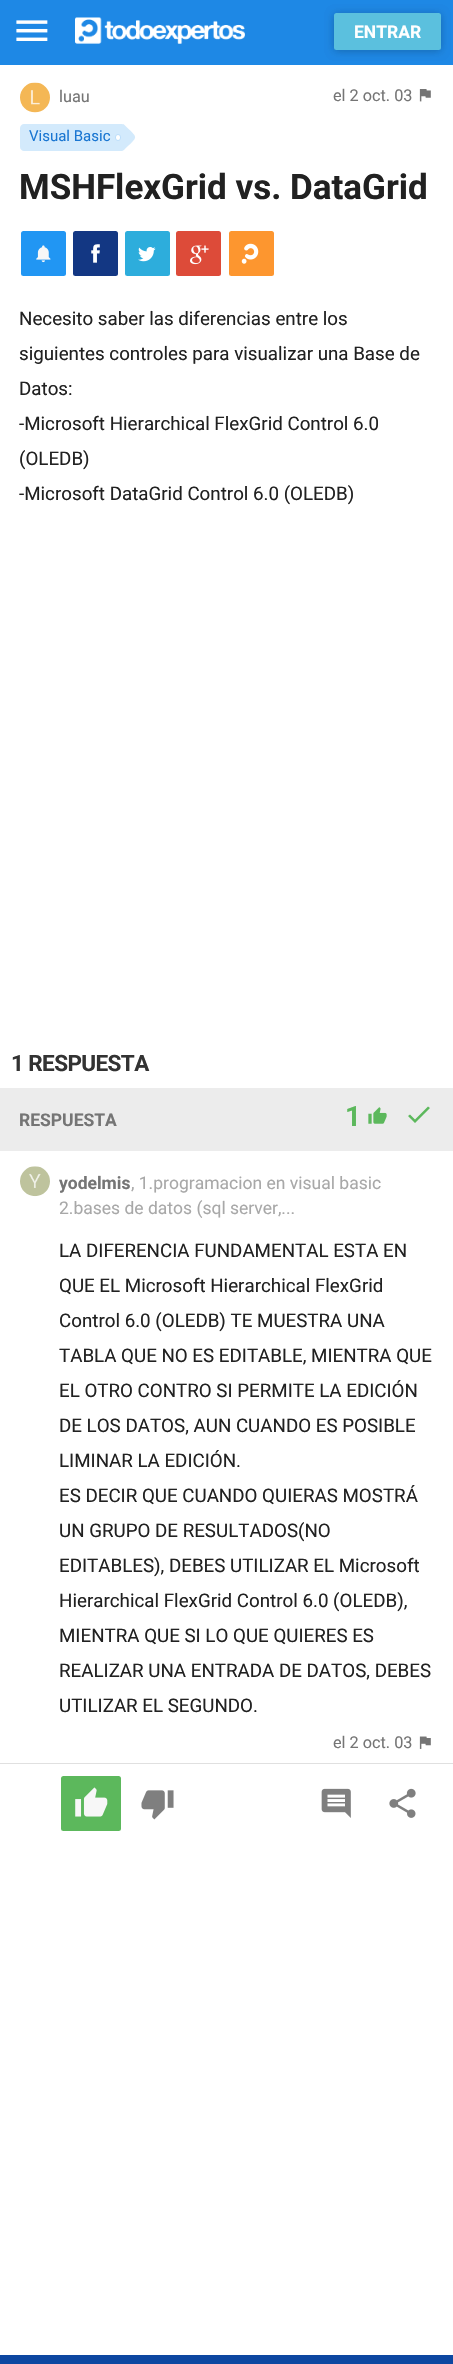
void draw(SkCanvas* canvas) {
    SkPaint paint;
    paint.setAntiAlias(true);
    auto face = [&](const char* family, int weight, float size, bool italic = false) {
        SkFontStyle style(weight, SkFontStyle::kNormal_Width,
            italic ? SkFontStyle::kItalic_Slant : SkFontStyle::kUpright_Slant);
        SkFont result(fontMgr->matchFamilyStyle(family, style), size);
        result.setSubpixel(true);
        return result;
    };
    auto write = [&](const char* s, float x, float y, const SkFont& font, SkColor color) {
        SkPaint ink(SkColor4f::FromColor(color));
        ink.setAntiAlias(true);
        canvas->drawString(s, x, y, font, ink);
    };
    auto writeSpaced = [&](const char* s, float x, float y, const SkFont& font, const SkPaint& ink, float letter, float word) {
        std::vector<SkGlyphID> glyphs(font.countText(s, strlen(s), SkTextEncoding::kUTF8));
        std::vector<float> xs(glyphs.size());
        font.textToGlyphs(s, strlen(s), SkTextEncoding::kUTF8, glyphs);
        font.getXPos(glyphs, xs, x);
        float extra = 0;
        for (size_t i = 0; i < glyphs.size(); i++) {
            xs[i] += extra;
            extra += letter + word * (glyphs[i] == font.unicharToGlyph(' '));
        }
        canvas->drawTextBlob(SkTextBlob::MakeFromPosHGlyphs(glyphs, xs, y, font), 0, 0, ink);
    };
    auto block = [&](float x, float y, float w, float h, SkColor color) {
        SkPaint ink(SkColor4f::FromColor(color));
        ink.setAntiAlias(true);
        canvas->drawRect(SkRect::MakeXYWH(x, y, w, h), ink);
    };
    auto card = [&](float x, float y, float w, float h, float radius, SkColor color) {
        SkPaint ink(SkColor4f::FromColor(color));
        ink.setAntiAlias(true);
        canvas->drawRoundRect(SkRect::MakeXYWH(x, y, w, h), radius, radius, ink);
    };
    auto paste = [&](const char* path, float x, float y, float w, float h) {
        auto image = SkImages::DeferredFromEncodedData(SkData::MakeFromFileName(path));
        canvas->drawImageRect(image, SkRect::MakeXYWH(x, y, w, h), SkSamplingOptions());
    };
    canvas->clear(SK_ColorWHITE);
    block(0, 0, 453, 65, SkColorSetRGB(30, 136, 229));
    paste("pic1.png", 16, 20, 32, 21);
    paste("pic2.png", 75, 17, 170, 27);
    paint.setColor(SkColorSetARGB(31, 0, 0, 0));
    paint.setMaskFilter(SkMaskFilter::MakeBlur(kNormal_SkBlurStyle, 4));
    canvas->drawRoundRect(SkRect::MakeXYWH(334, 14, 107, 37), 2.5f, 2.5f, paint);
    paint.setMaskFilter(nullptr);
    paint.setMaskFilter(SkMaskFilter::MakeBlur(kNormal_SkBlurStyle, 4));
    canvas->drawRoundRect(SkRect::MakeXYWH(334, 14, 107, 37), 2.5f, 2.5f, paint);
    paint.setMaskFilter(nullptr);
    card(334, 13, 107, 37, 2.5f, SkColorSetRGB(91, 192, 222));
    auto kFont1 = face("Roboto", 700, 17.5f);
    write("ENTRAR", 354, 38, kFont1, SK_ColorWHITE);
    paste("pic3.png", 20, 82, 30, 31);
    auto kFont2 = face("Roboto", 400, 16.25f);
    write("luau", 59, 102, kFont2, SkColorSetRGB(117, 117, 117));
    write("el 2 oct. 03", 333, 101, kFont2, SkColorSetRGB(117, 117, 117));
    paste("pic4.png", 419, 89, 12, 13);
    paint.setColor(SkColorSetRGB(211, 234, 252));
    canvas->drawPath(SkPathBuilder().moveTo(24, 124).lineTo(122, 124).cubicTo(122.5f, 124, 123, 124.5f, 123, 125).lineTo(123, 150).cubicTo(123, 150.5f, 122.5f, 151, 122, 151).lineTo(24, 151).cubicTo(22, 151, 20, 149, 20, 147).lineTo(20, 128).cubicTo(20, 126, 22, 124, 24, 124).close().detach(), paint);
    auto kFont3 = face("Roboto", 400, 15);
    write("Visual Basic", 29, 141, kFont3, SkColorSetRGB(25, 118, 210));
    canvas->drawPath(SkPathBuilder().moveTo(123.5f, 124).cubicTo(139, 139.5f, 139, 135, 123.5f, 150.5f).lineTo(110.5f, 137).close().detach(), paint);
    paint.setColor(SK_ColorWHITE);
    canvas->drawRoundRect(SkRect::MakeXYWH(115.5f, 134.5f, 5, 6), 2.5f, 2.5f, paint);
    paint.setStyle(SkPaint::kStroke_Style);
    paint.setStrokeWidth(1);
    paint.setColor(SkColorSetRGB(187, 222, 251));
    canvas->drawRoundRect(SkRect::MakeXYWH(115.5f, 134.5f, 5, 6), 2.5f, 2.5f, paint);
    auto kFont4 = face("Roboto", 700, 35);
    write("MSHFlexGrid vs. DataGrid", 19, 199, kFont4, SkColorSetRGB(33, 33, 33));
    card(21, 231, 45, 45, 2.5f, SkColorSetRGB(33, 150, 243));
    paste("pic5.png", 36, 245, 15, 18);
    card(73, 231, 45, 45, 2.5f, SkColorSetRGB(19, 55, 131));
    paste("pic6.png", 91, 244, 9, 19);
    card(125, 231, 45, 45, 2.5f, SkColorSetRGB(45, 173, 220));
    paste("pic7.png", 138, 247, 18, 15);
    card(176, 231, 45, 45, 2.5f, SkColorSetRGB(221, 75, 57));
    paste("pic8.png", 190, 245, 19, 20);
    card(229, 231, 45, 45, 2.5f, SkColorSetRGB(253, 150, 47));
    paste("pic9.png", 241, 243, 18, 21);
    auto kFont5 = face("Roboto", 400, 18.75f);
    write("Necesito saber las diferencias entre los", 19, 325, kFont5, SkColorSetRGB(33, 33, 33));
    write("siguientes controles para visualizar una Base de", 19, 360, kFont5, SkColorSetRGB(33, 33, 33));
    write("Datos:", 19, 395, kFont5, SkColorSetRGB(33, 33, 33));
    write("-Microsoft Hierarchical FlexGrid Control 6.0", 19, 430, kFont5, SkColorSetRGB(33, 33, 33));
    write("(OLEDB)", 19, 465, kFont5, SkColorSetRGB(33, 33, 33));
    write("-Microsoft DataGrid Control 6.0 (OLEDB)", 19, 500, kFont5, SkColorSetRGB(33, 33, 33));
    auto kFont6 = face("Roboto", 700, 22.5f);
    paint.setStyle(SkPaint::kFill_Style);
    paint.setColor(SkColorSetRGB(51, 51, 51));
    writeSpaced("1 RESPUESTA", 11, 1071, kFont6, paint, -0.6f, 0);
    block(0, 1088, 453, 63, SkColorSetRGB(236, 236, 236));
    write("RESPUESTA", 19, 1126, kFont1, SkColorSetRGB(117, 117, 117));
    auto kFont7 = face("Roboto", 700, 28);
    write("1", 345, 1126, kFont7, SkColorSetRGB(92, 184, 92));
    paste("pic10.png", 368, 1107, 19, 17);
    paint.setColor(SkColorSetRGB(92, 184, 92));
    canvas->drawPath(SkPathBuilder().moveTo(415, 1119.5f).lineTo(410, 1114.5f).lineTo(408, 1116).lineTo(415, 1123).lineTo(430, 1108).lineTo(428, 1106.5f).close().detach(), paint);
    paste("pic11.png", 20, 1166, 30, 31);
    write("yodelmis", 59, 1189, kFont1, SkColorSetRGB(117, 117, 117));
    auto kFont8 = face("Roboto", 400, 17.5f);
    write(", 1.programacion en visual basic", 131, 1189, kFont8, SkColorSetRGB(168, 168, 168));
    write("2.bases de datos (sql server,...", 59, 1214, kFont8, SkColorSetRGB(168, 168, 168));
    write("LA DIFERENCIA FUNDAMENTAL ESTA EN", 59, 1257, kFont5, SkColorSetRGB(33, 33, 33));
    write("QUE EL Microsoft Hierarchical FlexGrid", 59, 1292, kFont5, SkColorSetRGB(33, 33, 33));
    write("Control 6.0 (OLEDB) TE MUESTRA UNA", 59, 1327, kFont5, SkColorSetRGB(33, 33, 33));
    write("TABLA QUE NO ES EDITABLE, MIENTRA QUE", 59, 1362, kFont5, SkColorSetRGB(33, 33, 33));
    write("EL OTRO CONTRO SI PERMITE LA EDICIÓN", 59, 1397, kFont5, SkColorSetRGB(33, 33, 33));
    write("DE LOS DATOS, AUN CUANDO ES POSIBLE", 59, 1432, kFont5, SkColorSetRGB(33, 33, 33));
    write("LIMINAR LA EDICIÓN.", 59, 1467, kFont5, SkColorSetRGB(33, 33, 33));
    write("ES DECIR QUE CUANDO QUIERAS MOSTRÁ", 59, 1502, kFont5, SkColorSetRGB(33, 33, 33));
    write("UN GRUPO DE RESULTADOS(NO", 59, 1537, kFont5, SkColorSetRGB(33, 33, 33));
    write("EDITABLES), DEBES UTILIZAR EL Microsoft", 59, 1572, kFont5, SkColorSetRGB(33, 33, 33));
    write("Hierarchical FlexGrid Control 6.0 (OLEDB),", 59, 1607, kFont5, SkColorSetRGB(33, 33, 33));
    write("MIENTRA QUE SI LO QUE QUIERES ES", 59, 1642, kFont5, SkColorSetRGB(33, 33, 33));
    write("REALIZAR UNA ENTRADA DE DATOS, DEBES", 59, 1677, kFont5, SkColorSetRGB(33, 33, 33));
    write("UTILIZAR EL SEGUNDO.", 59, 1712, kFont5, SkColorSetRGB(33, 33, 33));
    write("el 2 oct. 03", 333, 1748, kFont2, SkColorSetRGB(117, 117, 117));
    paste("pic12.png", 419, 1736, 12, 13);
    block(0, 1763, 453, 1, SkColorSetRGB(224, 224, 224));
    card(61, 1776, 60, 55, 2.5f, SkColorSetRGB(92, 184, 92));
    paste("pic13.png", 75, 1787, 33, 30);
    paste("pic14.png", 141, 1790, 33, 30);
    paste("pic15.png", 321, 1788, 30, 30);
    paste("pic16.png", 389, 1788, 27, 30);
    block(0, 2355, 453, 9, SkColorSetRGB(13, 71, 161));
}
